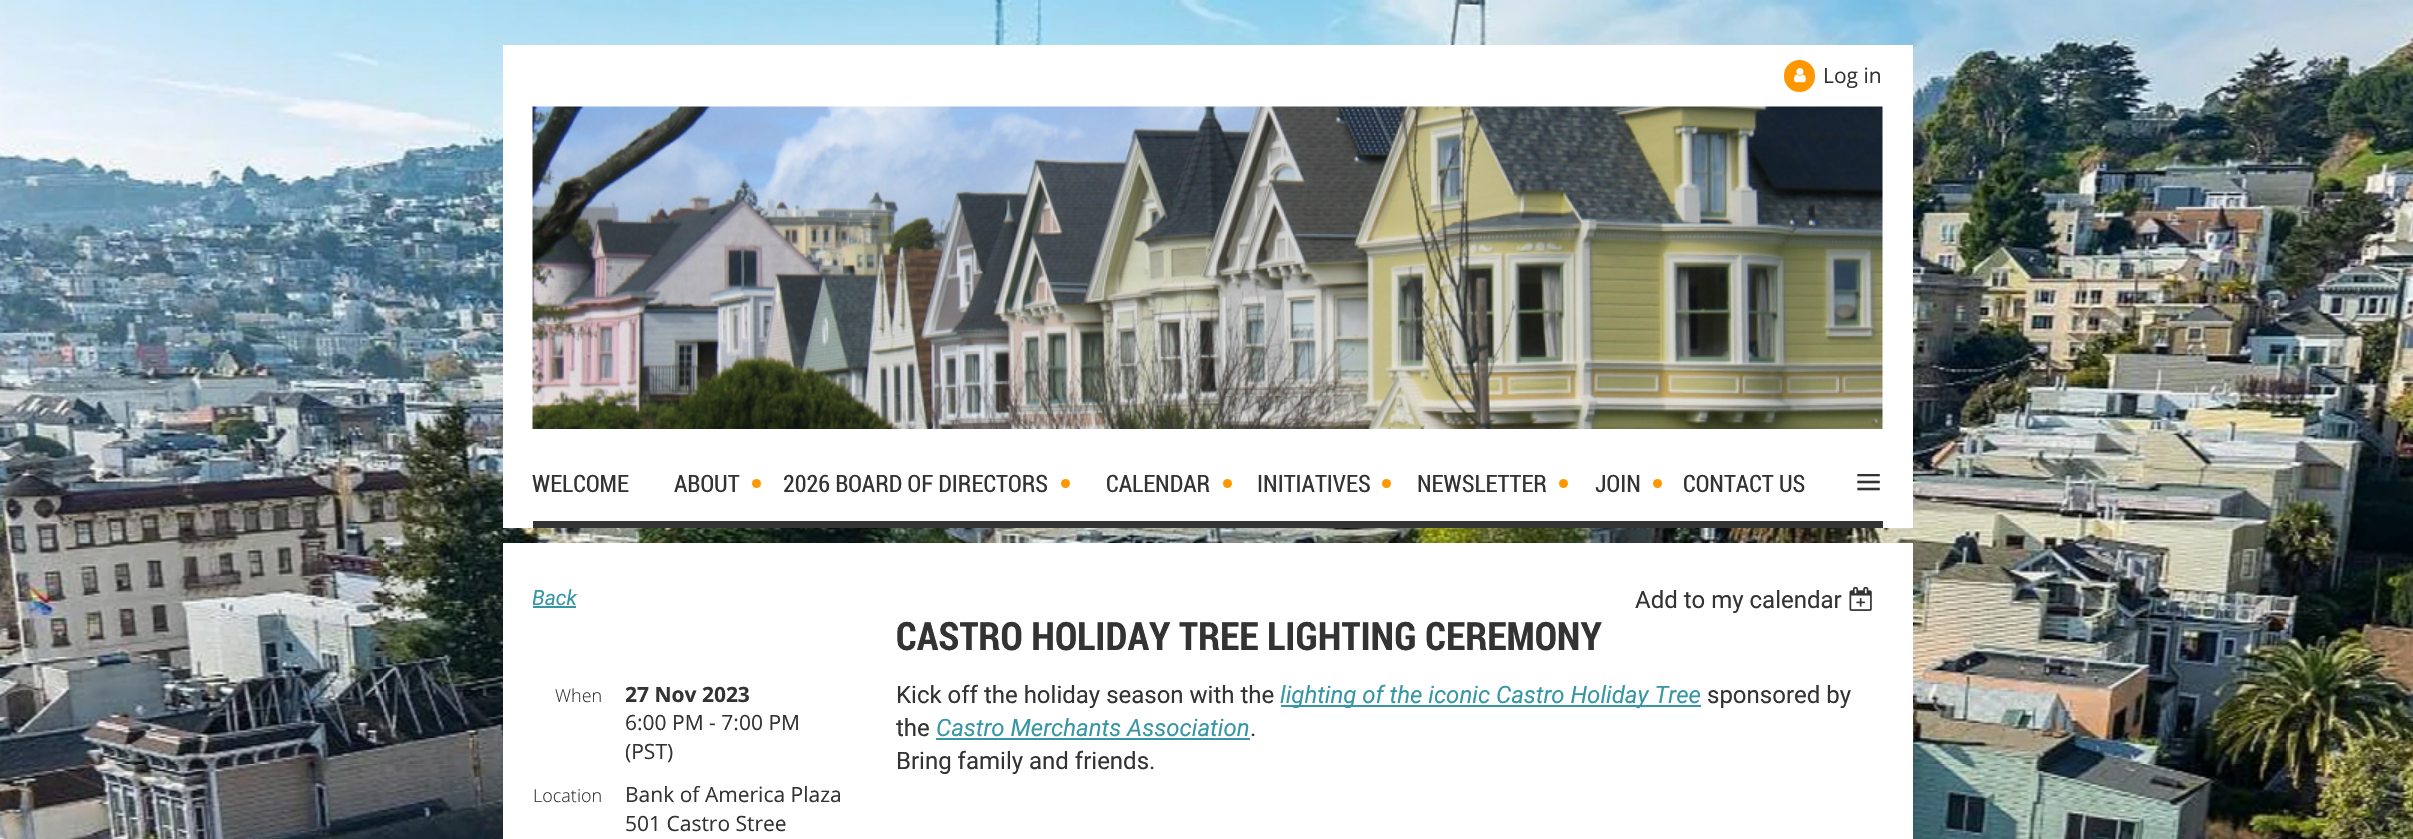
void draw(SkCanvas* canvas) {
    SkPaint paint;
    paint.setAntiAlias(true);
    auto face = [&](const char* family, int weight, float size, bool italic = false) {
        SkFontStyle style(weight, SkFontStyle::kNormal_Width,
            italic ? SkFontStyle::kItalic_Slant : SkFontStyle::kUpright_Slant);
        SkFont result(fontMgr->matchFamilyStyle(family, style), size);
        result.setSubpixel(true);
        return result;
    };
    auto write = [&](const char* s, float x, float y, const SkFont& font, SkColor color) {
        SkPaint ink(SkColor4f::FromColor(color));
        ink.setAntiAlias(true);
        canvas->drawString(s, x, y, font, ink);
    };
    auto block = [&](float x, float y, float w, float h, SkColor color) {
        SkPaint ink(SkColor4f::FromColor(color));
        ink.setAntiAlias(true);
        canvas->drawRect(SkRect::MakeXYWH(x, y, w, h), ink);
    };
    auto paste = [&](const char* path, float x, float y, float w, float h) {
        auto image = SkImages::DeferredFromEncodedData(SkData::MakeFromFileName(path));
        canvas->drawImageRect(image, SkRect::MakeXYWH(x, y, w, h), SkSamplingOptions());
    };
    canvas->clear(SK_ColorWHITE);
    paste("pic1.png", 0, 0, 2413, 839);
    block(503, 45, 1410, 483, SK_ColorWHITE);
    paint.setColor(SkColorSetRGB(254, 151, 1));
    canvas->drawRoundRect(SkRect::MakeXYWH(1785.5f, 61.5f, 28, 29), 14, 14, paint);
    paint.setStyle(SkPaint::kStroke_Style);
    paint.setStrokeWidth(3);
    canvas->drawRoundRect(SkRect::MakeXYWH(1785.5f, 61.5f, 28, 29), 14, 14, paint);
    paste("pic2.png", 1794, 68, 12, 15);
    auto kFont1 = face("Open Sans", 400, 21);
    write("Log in", 1823, 83, kFont1, SkColorSetRGB(51, 51, 51));
    paste("pic3.png", 532, 106, 1351, 323);
    block(533, 521, 1350, 7, SkColorSetRGB(51, 51, 51));
    auto kFont2 = face("Roboto Condensed", 400, 24);
    write("WELCOME", 532, 492, kFont2, SkColorSetRGB(51, 51, 51));
    write("ABOUT", 674, 492, kFont2, SkColorSetRGB(51, 51, 51));
    paint.setStyle(SkPaint::kFill_Style);
    canvas->drawCircle(756.5f, 483.5f, 4.5f, paint);
    write("2026 BOARD OF DIRECTORS", 783, 492, kFont2, SkColorSetRGB(51, 51, 51));
    canvas->drawCircle(1065.5f, 483.5f, 4.5f, paint);
    write("CALENDAR", 1106, 492, kFont2, SkColorSetRGB(51, 51, 51));
    canvas->drawCircle(1227.5f, 483.5f, 4.5f, paint);
    write("INITIATIVES", 1257, 492, kFont2, SkColorSetRGB(51, 51, 51));
    canvas->drawCircle(1386.5f, 483.5f, 4.5f, paint);
    write("NEWSLETTER", 1417, 492, kFont2, SkColorSetRGB(51, 51, 51));
    canvas->drawCircle(1563.5f, 483.5f, 4.5f, paint);
    write("JOIN", 1595, 492, kFont2, SkColorSetRGB(51, 51, 51));
    canvas->drawCircle(1657.5f, 483.5f, 4.5f, paint);
    write("CONTACT US", 1683, 492, kFont2, SkColorSetRGB(51, 51, 51));
    auto kFont3 = face("Liberation Serif", 400, 48);
    write("≡", 1855, 498, kFont3, SkColorSetRGB(51, 51, 51));
    block(503, 543, 1410, 296, SK_ColorWHITE);
    canvas->save();
    canvas->clipRect(SkRect::MakeXYWH(533, 573, 1350, 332));
    auto kFont4 = face("Roboto", 400, 21, true);
    write("Back", 532, 605, kFont4, SkColorSetRGB(54, 150, 164));
    canvas->restore();
    block(533, 606, 43, 2, SkColorSetRGB(54, 150, 164));
    auto kFont5 = face("Roboto", 400, 24);
    write("Add to my calendar", 1635, 608, kFont5, SkColorSetRGB(51, 51, 51));
    paste("pic4.png", 1849, 586, 23, 25);
    auto kFont6 = face("Roboto Condensed", 700, 39);
    write("CASTRO HOLIDAY TREE LIGHTING CEREMONY", 896, 650, kFont6, SkColorSetRGB(51, 51, 51));
    auto kFont7 = face("Open Sans", 300, 18);
    write("When", 555, 702, kFont7, SkColorSetRGB(51, 51, 51));
    canvas->save();
    canvas->clipRect(SkRect::MakeXYWH(626, 680, 124, 28));
    auto kFont8 = face("Open Sans", 700, 21);
    write("27 Nov 2023", 625, 702, kFont8, SkColorSetRGB(51, 51, 51));
    canvas->restore();
    write("6:00 PM - 7:00 PM", 625, 730, kFont1, SkColorSetRGB(51, 51, 51));
    canvas->save();
    canvas->clipRect(SkRect::MakeXYWH(626, 708, 226, 57));
    write("(PST)", 625, 759, kFont1, SkColorSetRGB(51, 51, 51));
    canvas->restore();
    write("Location", 533, 802, kFont7, SkColorSetRGB(51, 51, 51));
    write("Bank of America Plaza", 625, 802, kFont1, SkColorSetRGB(51, 51, 51));
    write("501 Castro Stree", 625, 831, kFont1, SkColorSetRGB(51, 51, 51));
    write("Kick off the holiday season with the", 896, 703, kFont5, SkColorSetRGB(51, 51, 51));
    block(1281, 705, 420, 2, SkColorSetRGB(54, 150, 164));
    auto kFont9 = face("Roboto", 400, 24, true);
    write("lighting of the iconic Castro Holiday Tree", 1280, 703, kFont9, SkColorSetRGB(54, 150, 164));
    write("sponsored by", 1707, 703, kFont5, SkColorSetRGB(51, 51, 51));
    write("the", 896, 736, kFont5, SkColorSetRGB(51, 51, 51));
    write("Castro Merchants Association", 936, 736, kFont9, SkColorSetRGB(54, 150, 164));
    write(".", 1250, 736, kFont5, SkColorSetRGB(51, 51, 51));
    block(936, 738, 314, 2, SkColorSetRGB(54, 150, 164));
    write("Bring family and friends.", 896, 769, kFont5, SkColorSetRGB(51, 51, 51));
}
